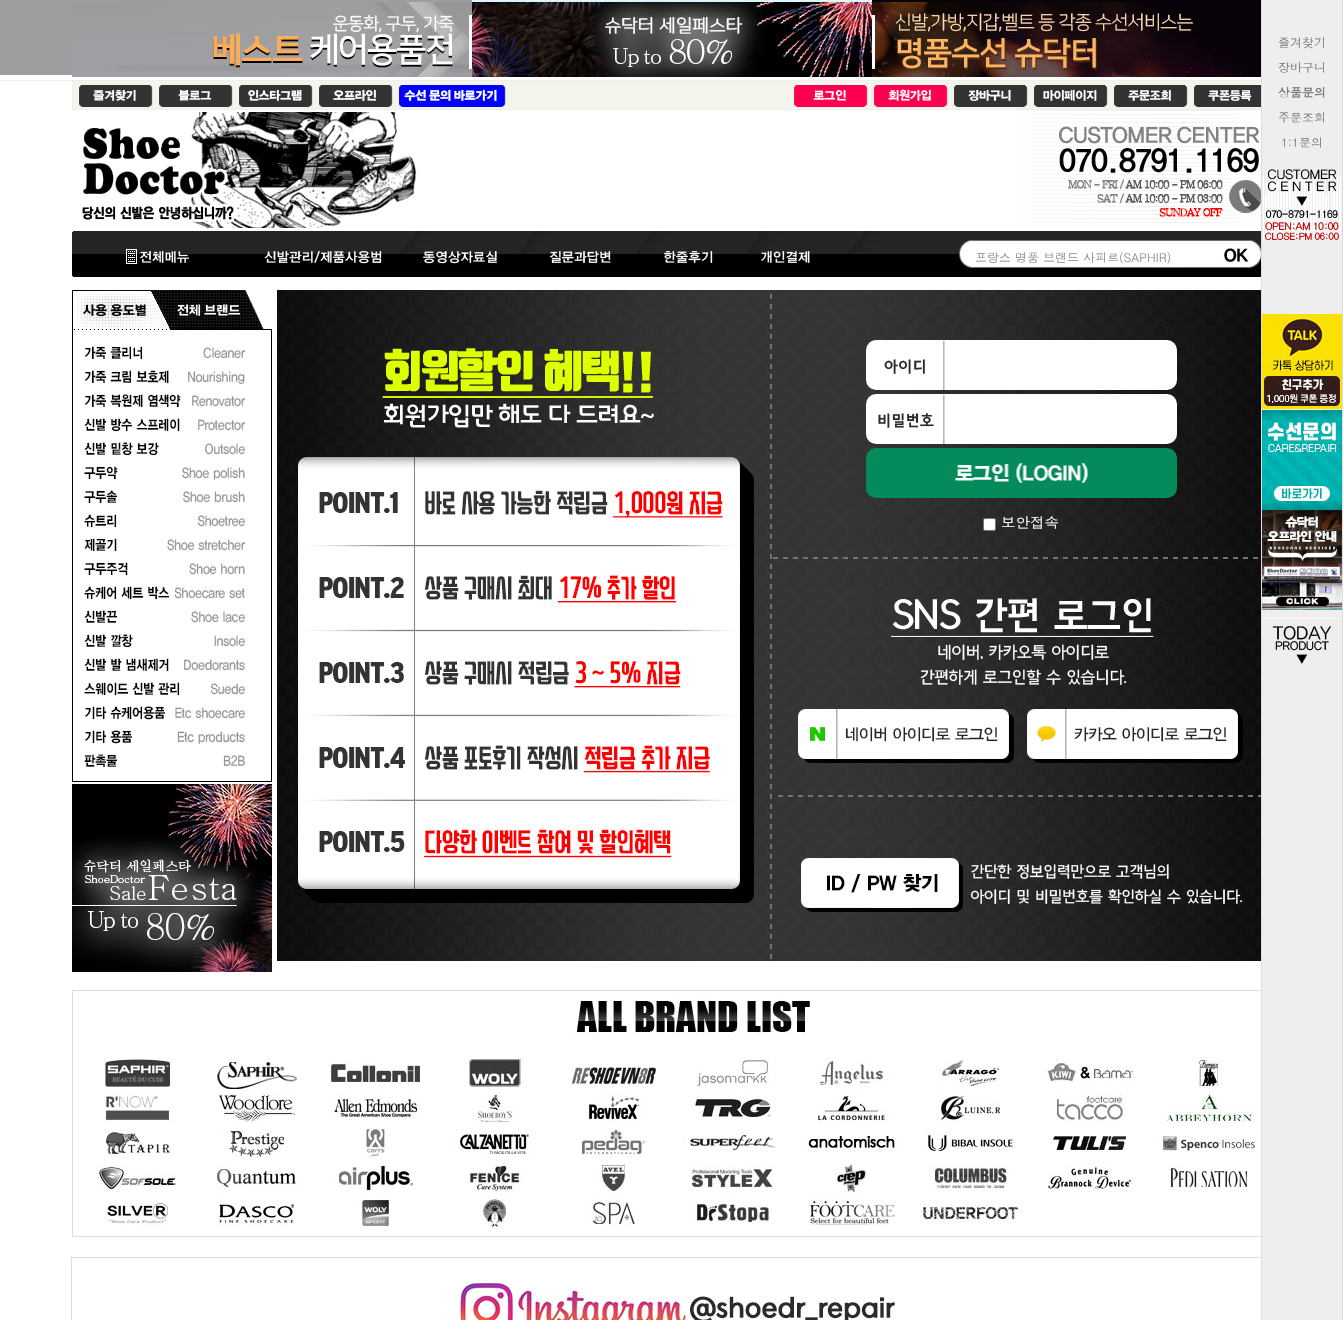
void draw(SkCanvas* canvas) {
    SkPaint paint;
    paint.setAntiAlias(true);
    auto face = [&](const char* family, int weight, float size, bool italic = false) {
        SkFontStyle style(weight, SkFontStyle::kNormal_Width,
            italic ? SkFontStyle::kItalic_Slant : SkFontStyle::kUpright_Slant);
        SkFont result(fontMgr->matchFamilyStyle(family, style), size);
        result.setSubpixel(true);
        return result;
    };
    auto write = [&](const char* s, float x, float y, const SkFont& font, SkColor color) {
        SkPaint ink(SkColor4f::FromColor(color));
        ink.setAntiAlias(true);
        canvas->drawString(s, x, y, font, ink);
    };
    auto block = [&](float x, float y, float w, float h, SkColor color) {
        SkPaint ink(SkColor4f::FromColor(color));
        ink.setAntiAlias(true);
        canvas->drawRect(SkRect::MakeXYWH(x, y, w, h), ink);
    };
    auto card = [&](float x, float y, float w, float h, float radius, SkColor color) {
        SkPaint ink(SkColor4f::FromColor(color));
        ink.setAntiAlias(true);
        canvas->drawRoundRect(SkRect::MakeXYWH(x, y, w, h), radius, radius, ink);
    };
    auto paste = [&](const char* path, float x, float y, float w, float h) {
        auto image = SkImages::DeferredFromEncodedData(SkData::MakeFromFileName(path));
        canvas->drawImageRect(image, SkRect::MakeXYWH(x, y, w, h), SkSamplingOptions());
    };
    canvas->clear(SK_ColorWHITE);
    block(73, 81, 1188, 28, SkColorSetRGB(243, 245, 237));
    paint.setStyle(SkPaint::kStroke_Style);
    paint.setStrokeWidth(1);
    paint.setColor(SkColorSetRGB(238, 238, 238));
    canvas->drawRect(SkRect::MakeXYWH(72.5f, 80.5f, 1199, 29), paint);
    paint.setColor(SkColorSetRGB(221, 221, 221));
    canvas->drawRect(SkRect::MakeXYWH(72.5f, 990.5f, 1199, 246), paint);
    canvas->drawRect(SkRect::MakeXYWH(71.5f, 1257.5f, 1201, 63), paint);
    block(1262, 0, 80, 1320, SkColorSetRGB(238, 238, 238));
    block(1342, 0, 1, 1320, SkColorSetRGB(221, 221, 221));
    block(1261, 0, 1, 1320, SkColorSetRGB(221, 221, 221));
    auto kFont1 = face("Dotum", 400, 12);
    write("즐겨찾기", 1278, 47, kFont1, SkColorSetRGB(120, 120, 120));
    write("장바구니", 1278, 72, kFont1, SkColorSetRGB(120, 120, 120));
    auto kFont2 = face("Dotum", 700, 12);
    write("상품문의", 1278, 97, kFont2, SkColorSetRGB(120, 120, 120));
    write("주문조회", 1278, 122, kFont1, SkColorSetRGB(120, 120, 120));
    write("1:1문의", 1281, 147, kFont1, SkColorSetRGB(120, 120, 120));
    paste("pic1.png", 1263, 169, 78, 71);
    paste("pic2.png", 1262, 314, 80, 95);
    paste("pic3.png", 1262, 410, 80, 100);
    paste("pic4.png", 1262, 510, 80, 100);
    block(1262, 618, 80, 1, SkColorSetRGB(250, 250, 250));
    paste("pic5.png", 1272, 626, 59, 38);
    block(0, 80, 72, 1, SkColorSetRGB(238, 238, 238));
    block(0, 0, 472, 75, SkColorSetRGB(158, 158, 160));
    paste("pic6.png", 72, 2, 400, 75);
    block(472, 0, 400, 2, SkColorSetRGB(219, 245, 255));
    paste("pic7.png", 472, 2, 400, 75);
    paste("pic8.png", 872, 2, 389, 75);
    block(872, 0, 389, 2, SkColorSetRGB(8, 2, 9));
    paste("pic9.png", 79, 85, 74, 22);
    paste("pic10.png", 159, 85, 74, 22);
    paste("pic11.png", 239, 85, 74, 22);
    paste("pic12.png", 319, 85, 74, 22);
    paste("pic13.png", 399, 85, 107, 22);
    paste("pic14.png", 794, 85, 74, 22);
    paste("pic15.png", 874, 85, 74, 22);
    paste("pic16.png", 954, 85, 74, 22);
    paste("pic17.png", 1034, 85, 74, 22);
    paste("pic18.png", 1114, 85, 74, 22);
    paste("pic19.png", 1194, 85, 67, 22);
    paste("pic20.png", 82, 112, 336, 116);
    paste("pic21.png", 1015, 110, 246, 113);
    paste("pic22.png", 72, 231, 1189, 46);
    paste("pic23.png", 126, 249, 63, 15);
    paste("pic24.png", 264, 251, 118, 13);
    paste("pic25.png", 423, 251, 74, 13);
    paste("pic26.png", 550, 251, 61, 12);
    paste("pic27.png", 664, 251, 49, 12);
    paste("pic28.png", 761, 251, 49, 12);
    block(975, 264, 1, 1, SK_ColorWHITE);
    write("프랑스 명품 브랜드 사피르(SAPHIR)", 975, 262, kFont1, SkColorSetRGB(138, 138, 138));
    paste("pic29.png", 1223, 248, 26, 15);
    paste("pic30.png", 72, 290, 99, 40);
    paste("pic31.png", 152, 290, 120, 40);
    block(271, 330, 1, 452, SK_ColorBLACK);
    block(72, 781, 200, 1, SK_ColorBLACK);
    block(72, 330, 1, 452, SK_ColorBLACK);
    paste("pic32.png", 84, 346, 162, 14);
    paste("pic33.png", 84, 370, 161, 14);
    paste("pic34.png", 84, 394, 162, 14);
    paste("pic35.png", 84, 418, 162, 14);
    paste("pic36.png", 84, 442, 161, 14);
    paste("pic37.png", 84, 466, 161, 14);
    paste("pic38.png", 84, 490, 161, 14);
    paste("pic39.png", 84, 514, 161, 14);
    paste("pic40.png", 84, 538, 162, 14);
    paste("pic41.png", 84, 562, 161, 14);
    paste("pic42.png", 84, 586, 161, 14);
    paste("pic43.png", 84, 610, 161, 13);
    paste("pic44.png", 84, 634, 161, 14);
    paste("pic45.png", 84, 658, 161, 14);
    paste("pic46.png", 84, 682, 161, 14);
    paste("pic47.png", 84, 706, 161, 14);
    paste("pic48.png", 84, 730, 161, 14);
    paste("pic49.png", 84, 754, 161, 13);
    paste("pic50.png", 277, 290, 984, 671);
    paste("pic51.png", 298, 348, 456, 555);
    card(866, 340, 311, 50, 10, SK_ColorWHITE);
    paste("pic52.png", 884, 341, 61, 49);
    card(866, 394, 311, 50, 10, SK_ColorWHITE);
    paste("pic53.png", 878, 395, 67, 49);
    card(866, 448, 311, 50, 10, SkColorSetRGB(5, 139, 91));
    paste("pic54.png", 955, 463, 133, 20);
    paint.setStyle(SkPaint::kFill_Style);
    paint.setColor(SK_ColorWHITE);
    canvas->drawRoundRect(SkRect::MakeXYWH(983.5f, 518.5f, 12, 12), 1.5f, 1.5f, paint);
    paint.setStyle(SkPaint::kStroke_Style);
    paint.setColor(SkColorSetRGB(118, 118, 118));
    canvas->drawRoundRect(SkRect::MakeXYWH(983.5f, 518.5f, 12, 12), 1.5f, 1.5f, paint);
    auto kFont3 = face("Dotum", 400, 14.5f);
    write("보안접속", 1001, 528, kFont3, SK_ColorWHITE);
    paste("pic55.png", 891, 598, 263, 87);
    paste("pic56.png", 798, 709, 216, 54);
    paste("pic57.png", 1027, 709, 216, 54);
    paste("pic58.png", 801, 858, 442, 54);
    paste("pic59.png", 72, 784, 200, 188);
    paste("pic60.png", 571, 999, 246, 40);
    paste("pic61.png", 104, 1058, 71, 29);
    paste("pic62.png", 217, 1062, 80, 27);
    paste("pic63.png", 328, 1058, 93, 24);
    paste("pic64.png", 469, 1058, 56, 30);
    paste("pic65.png", 571, 1067, 85, 17);
    paste("pic66.png", 695, 1058, 76, 30);
    paste("pic67.png", 818, 1058, 72, 30);
    paste("pic68.png", 937, 1059, 63, 29);
    paste("pic69.png", 1040, 1058, 96, 24);
    paste("pic70.png", 1199, 1058, 24, 30);
    paste("pic71.png", 104, 1093, 72, 30);
    paste("pic72.png", 216, 1093, 79, 30);
    paste("pic73.png", 334, 1093, 87, 24);
    paste("pic74.png", 478, 1093, 39, 30);
    paste("pic75.png", 588, 1093, 55, 30);
    paste("pic76.png", 691, 1093, 80, 24);
    paste("pic77.png", 818, 1093, 72, 30);
    paste("pic78.png", 937, 1093, 64, 30);
    paste("pic79.png", 1056, 1093, 72, 30);
    paste("pic80.png", 1167, 1093, 88, 30);
    paste("pic81.png", 104, 1128, 72, 30);
    paste("pic82.png", 223, 1128, 64, 30);
    paste("pic83.png", 366, 1128, 24, 30);
    paste("pic84.png", 453, 1128, 79, 30);
    paste("pic85.png", 580, 1128, 65, 30);
    paste("pic86.png", 683, 1129, 93, 23);
    paste("pic87.png", 802, 1136, 96, 16);
    paste("pic88.png", 922, 1129, 95, 23);
    paste("pic89.png", 1048, 1136, 80, 16);
    paste("pic90.png", 1159, 1136, 96, 16);
    paste("pic91.png", 96, 1164, 80, 25);
    paste("pic92.png", 215, 1164, 88, 23);
    paste("pic93.png", 335, 1163, 79, 30);
    paste("pic94.png", 469, 1163, 56, 30);
    paste("pic95.png", 597, 1164, 31, 29);
    paste("pic96.png", 691, 1163, 87, 24);
    paste("pic97.png", 834, 1163, 33, 30);
    paste("pic98.png", 929, 1163, 80, 30);
    paste("pic99.png", 1048, 1163, 87, 30);
    paste("pic100.png", 1167, 1163, 82, 24);
    paste("pic101.png", 104, 1199, 64, 29);
    paste("pic102.png", 215, 1198, 80, 30);
    paste("pic103.png", 358, 1198, 32, 30);
    paste("pic104.png", 479, 1198, 30, 30);
    paste("pic105.png", 588, 1198, 47, 30);
    paste("pic106.png", 692, 1198, 79, 24);
    paste("pic107.png", 808, 1198, 88, 30);
    paste("pic108.png", 921, 1206, 104, 16);
    paste("pic109.png", 456, 1280, 439, 40);
}
